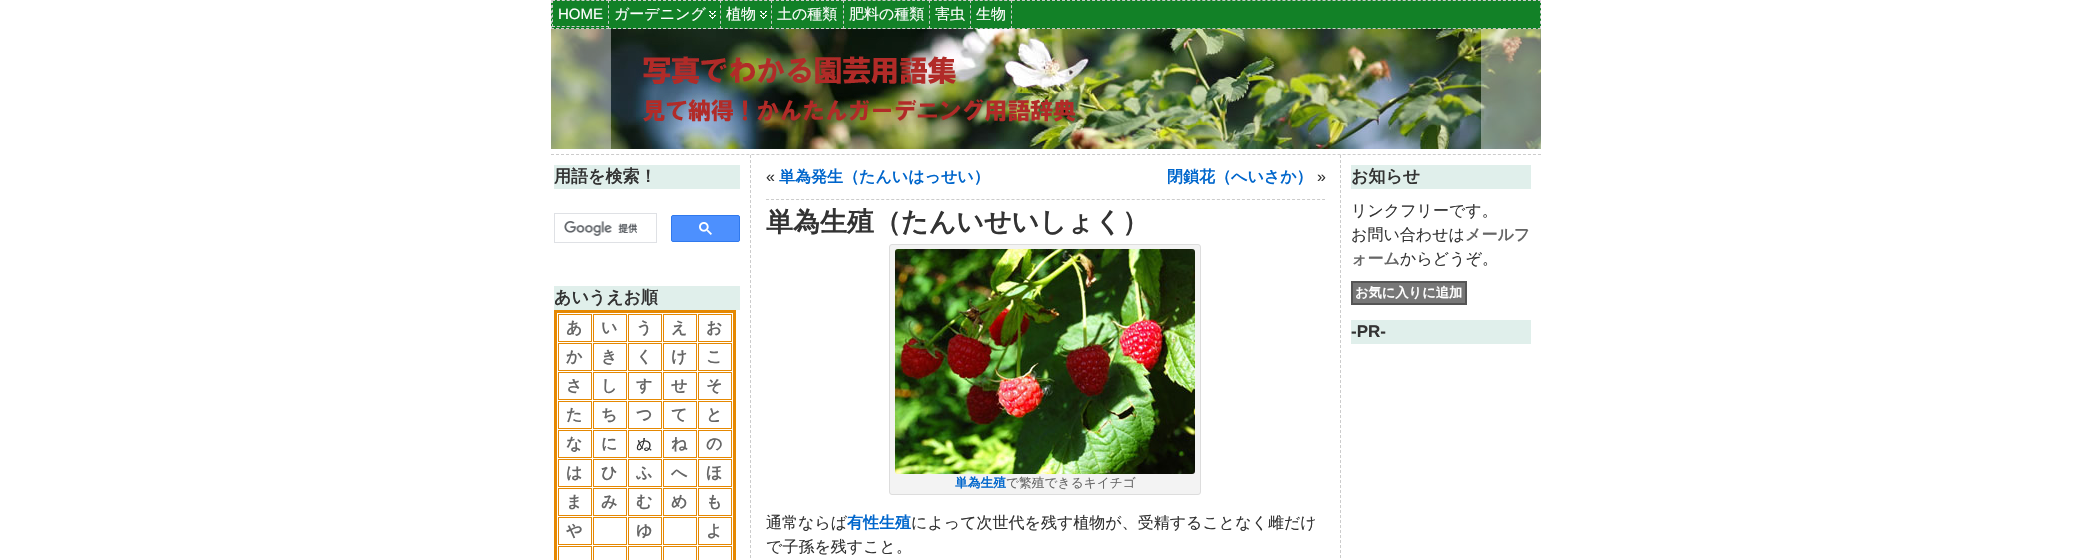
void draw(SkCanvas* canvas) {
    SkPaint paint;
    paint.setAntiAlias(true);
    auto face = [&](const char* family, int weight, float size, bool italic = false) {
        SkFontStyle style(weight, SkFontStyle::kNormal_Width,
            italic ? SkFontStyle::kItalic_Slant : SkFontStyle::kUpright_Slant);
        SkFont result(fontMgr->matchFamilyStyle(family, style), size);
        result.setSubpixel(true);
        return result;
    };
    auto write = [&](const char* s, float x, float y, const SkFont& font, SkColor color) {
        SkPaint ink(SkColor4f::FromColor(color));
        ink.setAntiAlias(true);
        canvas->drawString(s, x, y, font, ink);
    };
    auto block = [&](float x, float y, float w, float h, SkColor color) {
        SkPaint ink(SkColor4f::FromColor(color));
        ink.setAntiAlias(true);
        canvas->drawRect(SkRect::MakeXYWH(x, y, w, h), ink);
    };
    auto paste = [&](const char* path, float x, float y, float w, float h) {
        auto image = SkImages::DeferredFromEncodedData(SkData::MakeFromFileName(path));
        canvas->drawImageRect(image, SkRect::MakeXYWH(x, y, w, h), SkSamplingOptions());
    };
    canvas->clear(SK_ColorWHITE);
    block(551, 0, 990, 29, SkColorSetRGB(18, 129, 39));
    paint.setStyle(SkPaint::kStroke_Style);
    paint.setStrokeWidth(1);
    paint.setColor(SkColorSetRGB(204, 204, 204));
    paint.setPathEffect(SkDashPathEffect::Make({{3, 2.01f}}, 0));
    canvas->drawPath(SkPathBuilder().moveTo(551, 0.5f).lineTo(1541, 0.5f).detach(), paint);
    paint.setPathEffect(nullptr);
    paint.setPathEffect(SkDashPathEffect::Make({{3, 2.2f}}, 0));
    canvas->drawPath(SkPathBuilder().moveTo(1540.5f, 0).lineTo(1540.5f, 29).detach(), paint);
    paint.setPathEffect(nullptr);
    paint.setPathEffect(SkDashPathEffect::Make({{3, 2.01f}}, 0));
    canvas->drawPath(SkPathBuilder().moveTo(551, 28.5f).lineTo(1541, 28.5f).detach(), paint);
    paint.setPathEffect(nullptr);
    paint.setPathEffect(SkDashPathEffect::Make({{3, 2.2f}}, 0));
    canvas->drawPath(SkPathBuilder().moveTo(551.5f, 0).lineTo(551.5f, 29).detach(), paint);
    paint.setPathEffect(nullptr);
    block(552, 0, 56, 1, SkColorSetRGB(18, 129, 39));
    paint.setPathEffect(SkDashPathEffect::Make({{3, 1.91f}}, 0));
    canvas->drawPath(SkPathBuilder().moveTo(552, 0.5f).lineTo(609, 0.5f).moveTo(552, 26.5f).lineTo(609, 26.5f).detach(), paint);
    paint.setPathEffect(nullptr);
    paint.setPathEffect(SkDashPathEffect::Make({{3, 1.8f}}, 0));
    canvas->drawPath(SkPathBuilder().moveTo(552.5f, 0).lineTo(552.5f, 27).detach(), paint);
    paint.setPathEffect(nullptr);
    auto kFont1 = face("Liberation Sans", 400, 15);
    write("HOME", 558, 19, kFont1, SK_ColorWHITE);
    block(608, 0, 112, 29, SkColorSetRGB(18, 129, 39));
    paste("pic1.png", 709, 11, 7, 8);
    paint.setPathEffect(SkDashPathEffect::Make({{3, 2}}, 0));
    canvas->drawPath(SkPathBuilder().moveTo(608, 0.5f).lineTo(721, 0.5f).detach(), paint);
    paint.setPathEffect(nullptr);
    paint.setPathEffect(SkDashPathEffect::Make({{3, 2}}, 0));
    canvas->drawPath(SkPathBuilder().moveTo(608, 28.5f).lineTo(721, 28.5f).detach(), paint);
    paint.setPathEffect(nullptr);
    paint.setPathEffect(SkDashPathEffect::Make({{3, 2.2f}}, 0));
    canvas->drawPath(SkPathBuilder().moveTo(608.5f, 0).lineTo(608.5f, 29).detach(), paint);
    paint.setPathEffect(nullptr);
    auto kFont2 = face("WenQuanYi Zen Hei", 500, 15);
    write("ガーデニング", 614, 19, kFont2, SK_ColorWHITE);
    block(720, 0, 50, 29, SkColorSetRGB(18, 129, 39));
    paste("pic1.png", 760, 11, 7, 8);
    paint.setPathEffect(SkDashPathEffect::Make({{3, 1.9f}}, 0));
    canvas->drawPath(SkPathBuilder().moveTo(720, 0.5f).lineTo(772, 0.5f).moveTo(720, 28.5f).lineTo(772, 28.5f).detach(), paint);
    paint.setPathEffect(nullptr);
    paint.setPathEffect(SkDashPathEffect::Make({{3, 2.2f}}, 0));
    canvas->drawPath(SkPathBuilder().moveTo(720.5f, 0).lineTo(720.5f, 29).detach(), paint);
    paint.setPathEffect(nullptr);
    write("植物", 726, 19, kFont2, SK_ColorWHITE);
    block(771, 0, 72, 29, SkColorSetRGB(18, 129, 39));
    paint.setPathEffect(SkDashPathEffect::Make({{3, 2}}, 0));
    canvas->drawPath(SkPathBuilder().moveTo(771, 0.5f).lineTo(844, 0.5f).detach(), paint);
    paint.setPathEffect(nullptr);
    paint.setPathEffect(SkDashPathEffect::Make({{3, 2}}, 0));
    canvas->drawPath(SkPathBuilder().moveTo(771, 28.5f).lineTo(844, 28.5f).detach(), paint);
    paint.setPathEffect(nullptr);
    paint.setPathEffect(SkDashPathEffect::Make({{3, 2.2f}}, 0));
    canvas->drawPath(SkPathBuilder().moveTo(771.5f, 0).lineTo(771.5f, 29).detach(), paint);
    paint.setPathEffect(nullptr);
    write("土の種類", 777, 19, kFont2, SK_ColorWHITE);
    block(843, 0, 86, 29, SkColorSetRGB(18, 129, 39));
    paint.setPathEffect(SkDashPathEffect::Make({{3, 1.94f}}, 0));
    canvas->drawPath(SkPathBuilder().moveTo(843, 0.5f).lineTo(930, 0.5f).detach(), paint);
    paint.setPathEffect(nullptr);
    paint.setPathEffect(SkDashPathEffect::Make({{3, 1.94f}}, 0));
    canvas->drawPath(SkPathBuilder().moveTo(843, 28.5f).lineTo(930, 28.5f).detach(), paint);
    paint.setPathEffect(nullptr);
    paint.setPathEffect(SkDashPathEffect::Make({{3, 2.2f}}, 0));
    canvas->drawPath(SkPathBuilder().moveTo(843.5f, 0).lineTo(843.5f, 29).detach(), paint);
    paint.setPathEffect(nullptr);
    write("肥料の種類", 849, 19, kFont2, SK_ColorWHITE);
    block(929, 0, 41, 29, SkColorSetRGB(18, 129, 39));
    paint.setPathEffect(SkDashPathEffect::Make({{3, 1.88f}}, 0));
    canvas->drawPath(SkPathBuilder().moveTo(929, 0.5f).lineTo(971, 0.5f).moveTo(929, 28.5f).lineTo(971, 28.5f).detach(), paint);
    paint.setPathEffect(nullptr);
    paint.setPathEffect(SkDashPathEffect::Make({{3, 2.2f}}, 0));
    canvas->drawPath(SkPathBuilder().moveTo(929.5f, 0).lineTo(929.5f, 29).detach(), paint);
    paint.setPathEffect(nullptr);
    write("害虫", 935, 19, kFont2, SK_ColorWHITE);
    block(970, 0, 42, 29, SkColorSetRGB(18, 129, 39));
    paint.setPathEffect(SkDashPathEffect::Make({{3, 1.88f}}, 0));
    canvas->drawPath(SkPathBuilder().moveTo(970, 0.5f).lineTo(1012, 0.5f).detach(), paint);
    paint.setPathEffect(nullptr);
    paint.setPathEffect(SkDashPathEffect::Make({{3, 2.2f}}, 0));
    canvas->drawPath(SkPathBuilder().moveTo(1011.5f, 0).lineTo(1011.5f, 29).detach(), paint);
    paint.setPathEffect(nullptr);
    paint.setPathEffect(SkDashPathEffect::Make({{3, 1.88f}}, 0));
    canvas->drawPath(SkPathBuilder().moveTo(970, 28.5f).lineTo(1012, 28.5f).detach(), paint);
    paint.setPathEffect(nullptr);
    paint.setPathEffect(SkDashPathEffect::Make({{3, 2.2f}}, 0));
    canvas->drawPath(SkPathBuilder().moveTo(970.5f, 0).lineTo(970.5f, 29).detach(), paint);
    paint.setPathEffect(nullptr);
    write("生物", 976, 19, kFont2, SK_ColorWHITE);
    paste("pic2.png", 551, 29, 990, 120);
    block(551, 29, 60, 120, SkColorSetARGB(102, 255, 255, 255));
    block(1481, 29, 60, 120, SkColorSetARGB(102, 255, 255, 255));
    paint.setPathEffect(SkDashPathEffect::Make({{3, 2.01f}}, 0));
    canvas->drawPath(SkPathBuilder().moveTo(551, 154.5f).lineTo(1541, 154.5f).detach(), paint);
    paint.setPathEffect(nullptr);
    paint.setPathEffect(SkDashPathEffect::Make({{3, 2}}, 0));
    canvas->drawPath(SkPathBuilder().moveTo(750.5f, 155).lineTo(750.5f, 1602).detach(), paint);
    paint.setPathEffect(nullptr);
    block(554, 165, 186, 24, SkColorSetRGB(224, 239, 235));
    auto kFont3 = face("WenQuanYi Zen Hei", 700, 17);
    write("用語を検索！", 554, 182, kFont3, SkColorSetRGB(51, 51, 51));
    paint.setColor(SkColorSetRGB(223, 225, 229));
    canvas->drawRect(SkRect::MakeXYWH(554.5f, 213.5f, 102, 29), paint);
    paste("pic3.png", 564, 221, 74, 15);
    paint.setStyle(SkPaint::kFill_Style);
    paint.setColor(SkColorSetRGB(77, 144, 254));
    canvas->drawRoundRect(SkRect::MakeXYWH(671.5f, 215.5f, 68, 26), 1.5f, 1.5f, paint);
    paint.setStyle(SkPaint::kStroke_Style);
    paint.setColor(SkColorSetRGB(48, 121, 237));
    canvas->drawRoundRect(SkRect::MakeXYWH(671.5f, 215.5f, 68, 26), 1.5f, 1.5f, paint);
    paste("pic4.png", 699, 222, 13, 13);
    block(554, 286, 186, 24, SkColorSetRGB(224, 239, 235));
    write("あいうえお順", 554, 303, kFont3, SkColorSetRGB(51, 51, 51));
    paint.setStrokeWidth(3);
    paint.setColor(SkColorSetRGB(229, 136, 2));
    canvas->drawRect(SkRect::MakeXYWH(555.5f, 311.5f, 179, 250), paint);
    paint.setStrokeWidth(1);
    canvas->drawRect(SkRect::MakeXYWH(558.5f, 314.5f, 33, 27), paint);
    auto kFont4 = face("WenQuanYi Zen Hei", 700, 16);
    write("あ", 566, 333, kFont4, SkColorSetRGB(102, 102, 102));
    canvas->drawRect(SkRect::MakeXYWH(593.5f, 314.5f, 33, 27), paint);
    write("い", 601, 333, kFont4, SkColorSetRGB(102, 102, 102));
    canvas->drawRect(SkRect::MakeXYWH(628.5f, 314.5f, 33, 27), paint);
    write("う", 636, 333, kFont4, SkColorSetRGB(102, 102, 102));
    canvas->drawRect(SkRect::MakeXYWH(663.5f, 314.5f, 33, 27), paint);
    write("え", 671, 333, kFont4, SkColorSetRGB(102, 102, 102));
    canvas->drawRect(SkRect::MakeXYWH(698.5f, 314.5f, 33, 27), paint);
    write("お", 706, 333, kFont4, SkColorSetRGB(102, 102, 102));
    canvas->drawRect(SkRect::MakeXYWH(558.5f, 343.5f, 33, 27), paint);
    write("か", 566, 362, kFont4, SkColorSetRGB(102, 102, 102));
    canvas->drawRect(SkRect::MakeXYWH(593.5f, 343.5f, 33, 27), paint);
    write("き", 601, 362, kFont4, SkColorSetRGB(102, 102, 102));
    canvas->drawRect(SkRect::MakeXYWH(628.5f, 343.5f, 33, 27), paint);
    write("く", 636, 362, kFont4, SkColorSetRGB(102, 102, 102));
    canvas->drawRect(SkRect::MakeXYWH(663.5f, 343.5f, 33, 27), paint);
    write("け", 671, 362, kFont4, SkColorSetRGB(102, 102, 102));
    canvas->drawRect(SkRect::MakeXYWH(698.5f, 343.5f, 33, 27), paint);
    write("こ", 706, 362, kFont4, SkColorSetRGB(102, 102, 102));
    canvas->drawRect(SkRect::MakeXYWH(558.5f, 372.5f, 33, 27), paint);
    write("さ", 566, 391, kFont4, SkColorSetRGB(102, 102, 102));
    canvas->drawRect(SkRect::MakeXYWH(593.5f, 372.5f, 33, 27), paint);
    write("し", 601, 391, kFont4, SkColorSetRGB(102, 102, 102));
    canvas->drawRect(SkRect::MakeXYWH(628.5f, 372.5f, 33, 27), paint);
    write("す", 636, 391, kFont4, SkColorSetRGB(102, 102, 102));
    canvas->drawRect(SkRect::MakeXYWH(663.5f, 372.5f, 33, 27), paint);
    write("せ", 671, 391, kFont4, SkColorSetRGB(102, 102, 102));
    canvas->drawRect(SkRect::MakeXYWH(698.5f, 372.5f, 33, 27), paint);
    write("そ", 706, 391, kFont4, SkColorSetRGB(102, 102, 102));
    canvas->drawRect(SkRect::MakeXYWH(558.5f, 401.5f, 33, 27), paint);
    write("た", 566, 420, kFont4, SkColorSetRGB(102, 102, 102));
    canvas->drawRect(SkRect::MakeXYWH(593.5f, 401.5f, 33, 27), paint);
    write("ち", 601, 420, kFont4, SkColorSetRGB(102, 102, 102));
    canvas->drawRect(SkRect::MakeXYWH(628.5f, 401.5f, 33, 27), paint);
    write("つ", 636, 420, kFont4, SkColorSetRGB(102, 102, 102));
    canvas->drawRect(SkRect::MakeXYWH(663.5f, 401.5f, 33, 27), paint);
    write("て", 671, 420, kFont4, SkColorSetRGB(102, 102, 102));
    canvas->drawRect(SkRect::MakeXYWH(698.5f, 401.5f, 33, 27), paint);
    write("と", 706, 420, kFont4, SkColorSetRGB(102, 102, 102));
    canvas->drawRect(SkRect::MakeXYWH(558.5f, 430.5f, 33, 27), paint);
    write("な", 566, 449, kFont4, SkColorSetRGB(102, 102, 102));
    canvas->drawRect(SkRect::MakeXYWH(593.5f, 430.5f, 33, 27), paint);
    write("に", 601, 449, kFont4, SkColorSetRGB(102, 102, 102));
    canvas->drawRect(SkRect::MakeXYWH(628.5f, 430.5f, 33, 27), paint);
    auto kFont5 = face("WenQuanYi Zen Hei", 500, 16);
    write("ぬ", 636, 449, kFont5, SkColorSetRGB(51, 51, 51));
    canvas->drawRect(SkRect::MakeXYWH(663.5f, 430.5f, 33, 27), paint);
    write("ね", 671, 449, kFont4, SkColorSetRGB(102, 102, 102));
    canvas->drawRect(SkRect::MakeXYWH(698.5f, 430.5f, 33, 27), paint);
    write("の", 706, 449, kFont4, SkColorSetRGB(102, 102, 102));
    canvas->drawRect(SkRect::MakeXYWH(558.5f, 459.5f, 33, 27), paint);
    write("は", 566, 478, kFont4, SkColorSetRGB(102, 102, 102));
    canvas->drawRect(SkRect::MakeXYWH(593.5f, 459.5f, 33, 27), paint);
    write("ひ", 601, 478, kFont4, SkColorSetRGB(102, 102, 102));
    canvas->drawRect(SkRect::MakeXYWH(628.5f, 459.5f, 33, 27), paint);
    write("ふ", 636, 478, kFont4, SkColorSetRGB(102, 102, 102));
    canvas->drawRect(SkRect::MakeXYWH(663.5f, 459.5f, 33, 27), paint);
    write("へ", 671, 478, kFont4, SkColorSetRGB(102, 102, 102));
    canvas->drawRect(SkRect::MakeXYWH(698.5f, 459.5f, 33, 27), paint);
    write("ほ", 706, 478, kFont4, SkColorSetRGB(102, 102, 102));
    canvas->drawRect(SkRect::MakeXYWH(558.5f, 488.5f, 33, 27), paint);
    write("ま", 566, 507, kFont4, SkColorSetRGB(102, 102, 102));
    canvas->drawRect(SkRect::MakeXYWH(593.5f, 488.5f, 33, 27), paint);
    write("み", 601, 507, kFont4, SkColorSetRGB(102, 102, 102));
    canvas->drawRect(SkRect::MakeXYWH(628.5f, 488.5f, 33, 27), paint);
    write("む", 636, 507, kFont4, SkColorSetRGB(102, 102, 102));
    canvas->drawRect(SkRect::MakeXYWH(663.5f, 488.5f, 33, 27), paint);
    write("め", 671, 507, kFont4, SkColorSetRGB(102, 102, 102));
    canvas->drawRect(SkRect::MakeXYWH(698.5f, 488.5f, 33, 27), paint);
    write("も", 706, 507, kFont4, SkColorSetRGB(102, 102, 102));
    canvas->drawRect(SkRect::MakeXYWH(558.5f, 517.5f, 33, 27), paint);
    write("や", 566, 536, kFont4, SkColorSetRGB(102, 102, 102));
    canvas->drawRect(SkRect::MakeXYWH(593.5f, 517.5f, 33, 27), paint);
    canvas->drawRect(SkRect::MakeXYWH(628.5f, 517.5f, 33, 27), paint);
    write("ゆ", 636, 536, kFont4, SkColorSetRGB(102, 102, 102));
    canvas->drawRect(SkRect::MakeXYWH(663.5f, 517.5f, 33, 27), paint);
    canvas->drawRect(SkRect::MakeXYWH(698.5f, 517.5f, 33, 27), paint);
    write("よ", 706, 536, kFont4, SkColorSetRGB(102, 102, 102));
    canvas->drawRect(SkRect::MakeXYWH(558.5f, 546.5f, 33, 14), paint);
    canvas->drawRect(SkRect::MakeXYWH(593.5f, 546.5f, 33, 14), paint);
    canvas->drawRect(SkRect::MakeXYWH(628.5f, 546.5f, 33, 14), paint);
    canvas->drawRect(SkRect::MakeXYWH(663.5f, 546.5f, 33, 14), paint);
    canvas->drawRect(SkRect::MakeXYWH(698.5f, 546.5f, 33, 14), paint);
    paint.setColor(SkColorSetRGB(204, 204, 204));
    paint.setPathEffect(SkDashPathEffect::Make({{3, 2.01f}}, 0));
    canvas->drawPath(SkPathBuilder().moveTo(766, 199.5f).lineTo(1325, 199.5f).detach(), paint);
    paint.setPathEffect(nullptr);
    auto kFont6 = face("Liberation Sans", 400, 16);
    write("«", 766, 182, kFont6, SkColorSetRGB(51, 51, 51));
    write("単為発生（たんいはっせい）", 779, 182, kFont4, SkColorSetRGB(0, 102, 204));
    write("閉鎖花（へいさか）", 1167, 182, kFont4, SkColorSetRGB(0, 102, 204));
    write("»", 1317, 182, kFont6, SkColorSetRGB(51, 51, 51));
    auto kFont7 = face("WenQuanYi Zen Hei", 700, 27);
    write("単為生殖（たんいせいしょく）", 766, 231, kFont7, SkColorSetRGB(51, 51, 51));
    paint.setStyle(SkPaint::kFill_Style);
    paint.setColor(SkColorSetRGB(243, 243, 243));
    canvas->drawRoundRect(SkRect::MakeXYWH(889.5f, 244.5f, 311, 250), 2.5f, 2.5f, paint);
    paint.setStyle(SkPaint::kStroke_Style);
    paint.setColor(SkColorSetRGB(221, 221, 221));
    canvas->drawRoundRect(SkRect::MakeXYWH(889.5f, 244.5f, 311, 250), 2.5f, 2.5f, paint);
    paste("pic5.png", 895, 249, 300, 225);
    auto kFont8 = face("WenQuanYi Zen Hei", 700, 12.75f);
    write("単為生殖", 955, 487, kFont8, SkColorSetRGB(0, 102, 204));
    auto kFont9 = face("WenQuanYi Zen Hei", 500, 12.75f);
    write("で繁殖できるキイチゴ", 1006, 487, kFont9, SkColorSetRGB(102, 102, 102));
    write("通常ならば", 766, 528, kFont5, SkColorSetRGB(51, 51, 51));
    write("有性生殖", 847, 528, kFont4, SkColorSetRGB(0, 102, 204));
    write("によって次世代を残す植物が、受精することなく雌だけ", 911, 528, kFont5, SkColorSetRGB(51, 51, 51));
    write("で子孫を残すこと。", 766, 552, kFont5, SkColorSetRGB(51, 51, 51));
    paint.setColor(SkColorSetRGB(204, 204, 204));
    paint.setPathEffect(SkDashPathEffect::Make({{3, 2}}, 0));
    canvas->drawPath(SkPathBuilder().moveTo(1340.5f, 155).lineTo(1340.5f, 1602).detach(), paint);
    paint.setPathEffect(nullptr);
    block(1351, 165, 180, 24, SkColorSetRGB(224, 239, 235));
    write("お知らせ", 1351, 182, kFont3, SkColorSetRGB(51, 51, 51));
    write("リンクフリーです。", 1351, 216, kFont5, SkColorSetRGB(51, 51, 51));
    write("お問い合わせは", 1351, 240, kFont5, SkColorSetRGB(51, 51, 51));
    write("メールフ", 1465, 240, kFont4, SkColorSetRGB(102, 102, 102));
    write("ォーム", 1351, 264, kFont4, SkColorSetRGB(102, 102, 102));
    write("からどうぞ。", 1400, 264, kFont5, SkColorSetRGB(51, 51, 51));
    paint.setStyle(SkPaint::kFill_Style);
    paint.setColor(SkColorSetRGB(119, 119, 119));
    canvas->drawRect(SkRect::MakeXYWH(1352, 282, 114, 22), paint);
    paint.setStyle(SkPaint::kStroke_Style);
    paint.setStrokeWidth(2);
    paint.setColor(SkColorSetRGB(85, 85, 85));
    canvas->drawRect(SkRect::MakeXYWH(1352, 282, 114, 22), paint);
    auto kFont10 = face("WenQuanYi Zen Hei", 700, 13.25f);
    write("お気に入りに追加", 1355, 297, kFont10, SK_ColorWHITE);
    block(1351, 320, 180, 24, SkColorSetRGB(224, 239, 235));
    auto kFont11 = face("Liberation Sans", 700, 17);
    write("-PR-", 1351, 337, kFont11, SkColorSetRGB(51, 51, 51));
}
